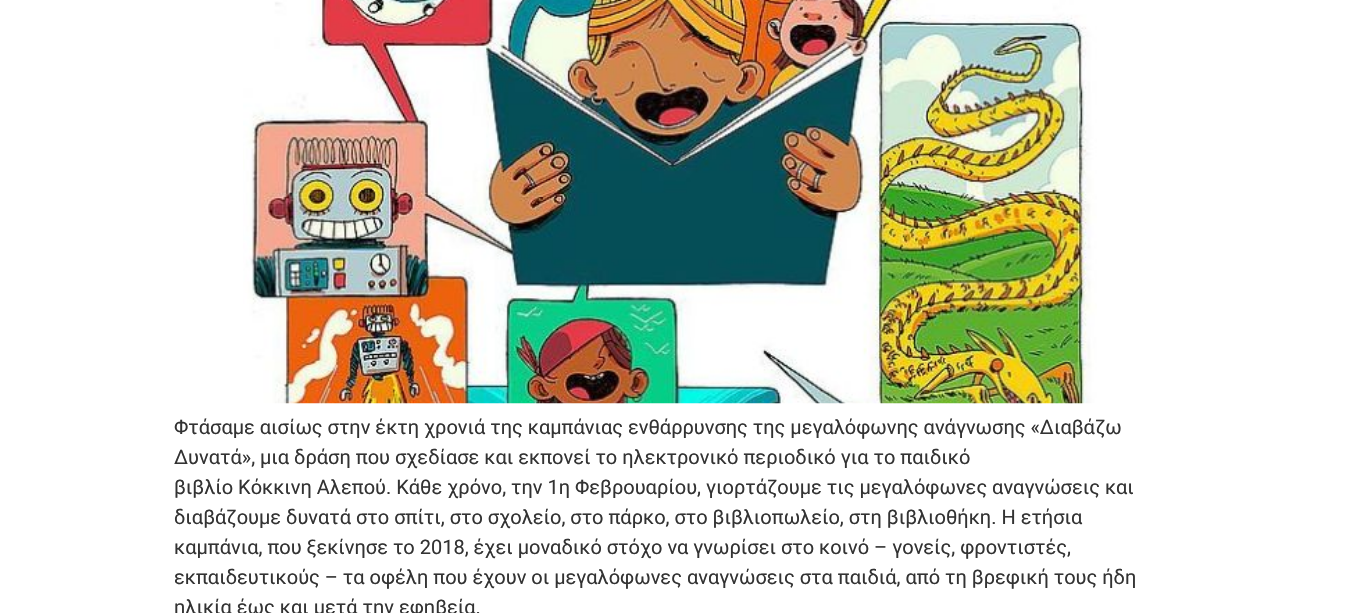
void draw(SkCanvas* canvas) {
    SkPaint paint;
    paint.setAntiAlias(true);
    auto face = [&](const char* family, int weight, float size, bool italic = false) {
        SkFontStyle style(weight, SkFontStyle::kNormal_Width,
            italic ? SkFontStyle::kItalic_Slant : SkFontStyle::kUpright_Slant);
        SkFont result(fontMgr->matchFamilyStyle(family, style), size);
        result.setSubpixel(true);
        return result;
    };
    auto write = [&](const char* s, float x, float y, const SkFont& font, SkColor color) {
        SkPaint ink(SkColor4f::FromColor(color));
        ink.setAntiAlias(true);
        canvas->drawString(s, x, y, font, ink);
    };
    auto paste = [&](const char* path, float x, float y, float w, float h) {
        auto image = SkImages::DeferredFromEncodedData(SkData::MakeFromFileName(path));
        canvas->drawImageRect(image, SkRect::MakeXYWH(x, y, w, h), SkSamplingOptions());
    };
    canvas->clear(SK_ColorWHITE);
    paste("pic1.png", 243, 0, 854, 404);
    auto kFont1 = face("Roboto", 400, 20);
    write("Φτάσαμε αισίως στην έκτη χρονιά της καμπάνιας ενθάρρυνσης της μεγαλόφωνης ανάγνωσης «Διαβάζω", 174, 434, kFont1, SkColorSetRGB(51, 51, 51));
    write("Δυνατά», μια δράση που σχεδίασε και εκπονεί το ηλεκτρονικό περιοδικό για το παιδικό", 174, 464, kFont1, SkColorSetRGB(51, 51, 51));
    write("βιβλίο Κόκκινη Αλεπού. Κάθε χρόνο, την 1η Φεβρουαρίου, γιορτάζουμε τις μεγαλόφωνες αναγνώσεις και", 174, 494, kFont1, SkColorSetRGB(51, 51, 51));
    write("διαβάζουμε δυνατά στο σπίτι, στο σχολείο, στο πάρκο, στο βιβλιοπωλείο, στη βιβλιοθήκη. Η ετήσια", 174, 524, kFont1, SkColorSetRGB(51, 51, 51));
    write("καμπάνια, που ξεκίνησε το 2018, έχει μοναδικό στόχο να γνωρίσει στο κοινό – γονείς, φροντιστές,", 174, 554, kFont1, SkColorSetRGB(51, 51, 51));
    write("εκπαιδευτικούς – τα οφέλη που έχουν οι μεγαλόφωνες αναγνώσεις στα παιδιά, από τη βρεφική τους ήδη", 174, 584, kFont1, SkColorSetRGB(51, 51, 51));
    write("ηλικία έως και μετά την εφηβεία.", 174, 614, kFont1, SkColorSetRGB(51, 51, 51));
}
